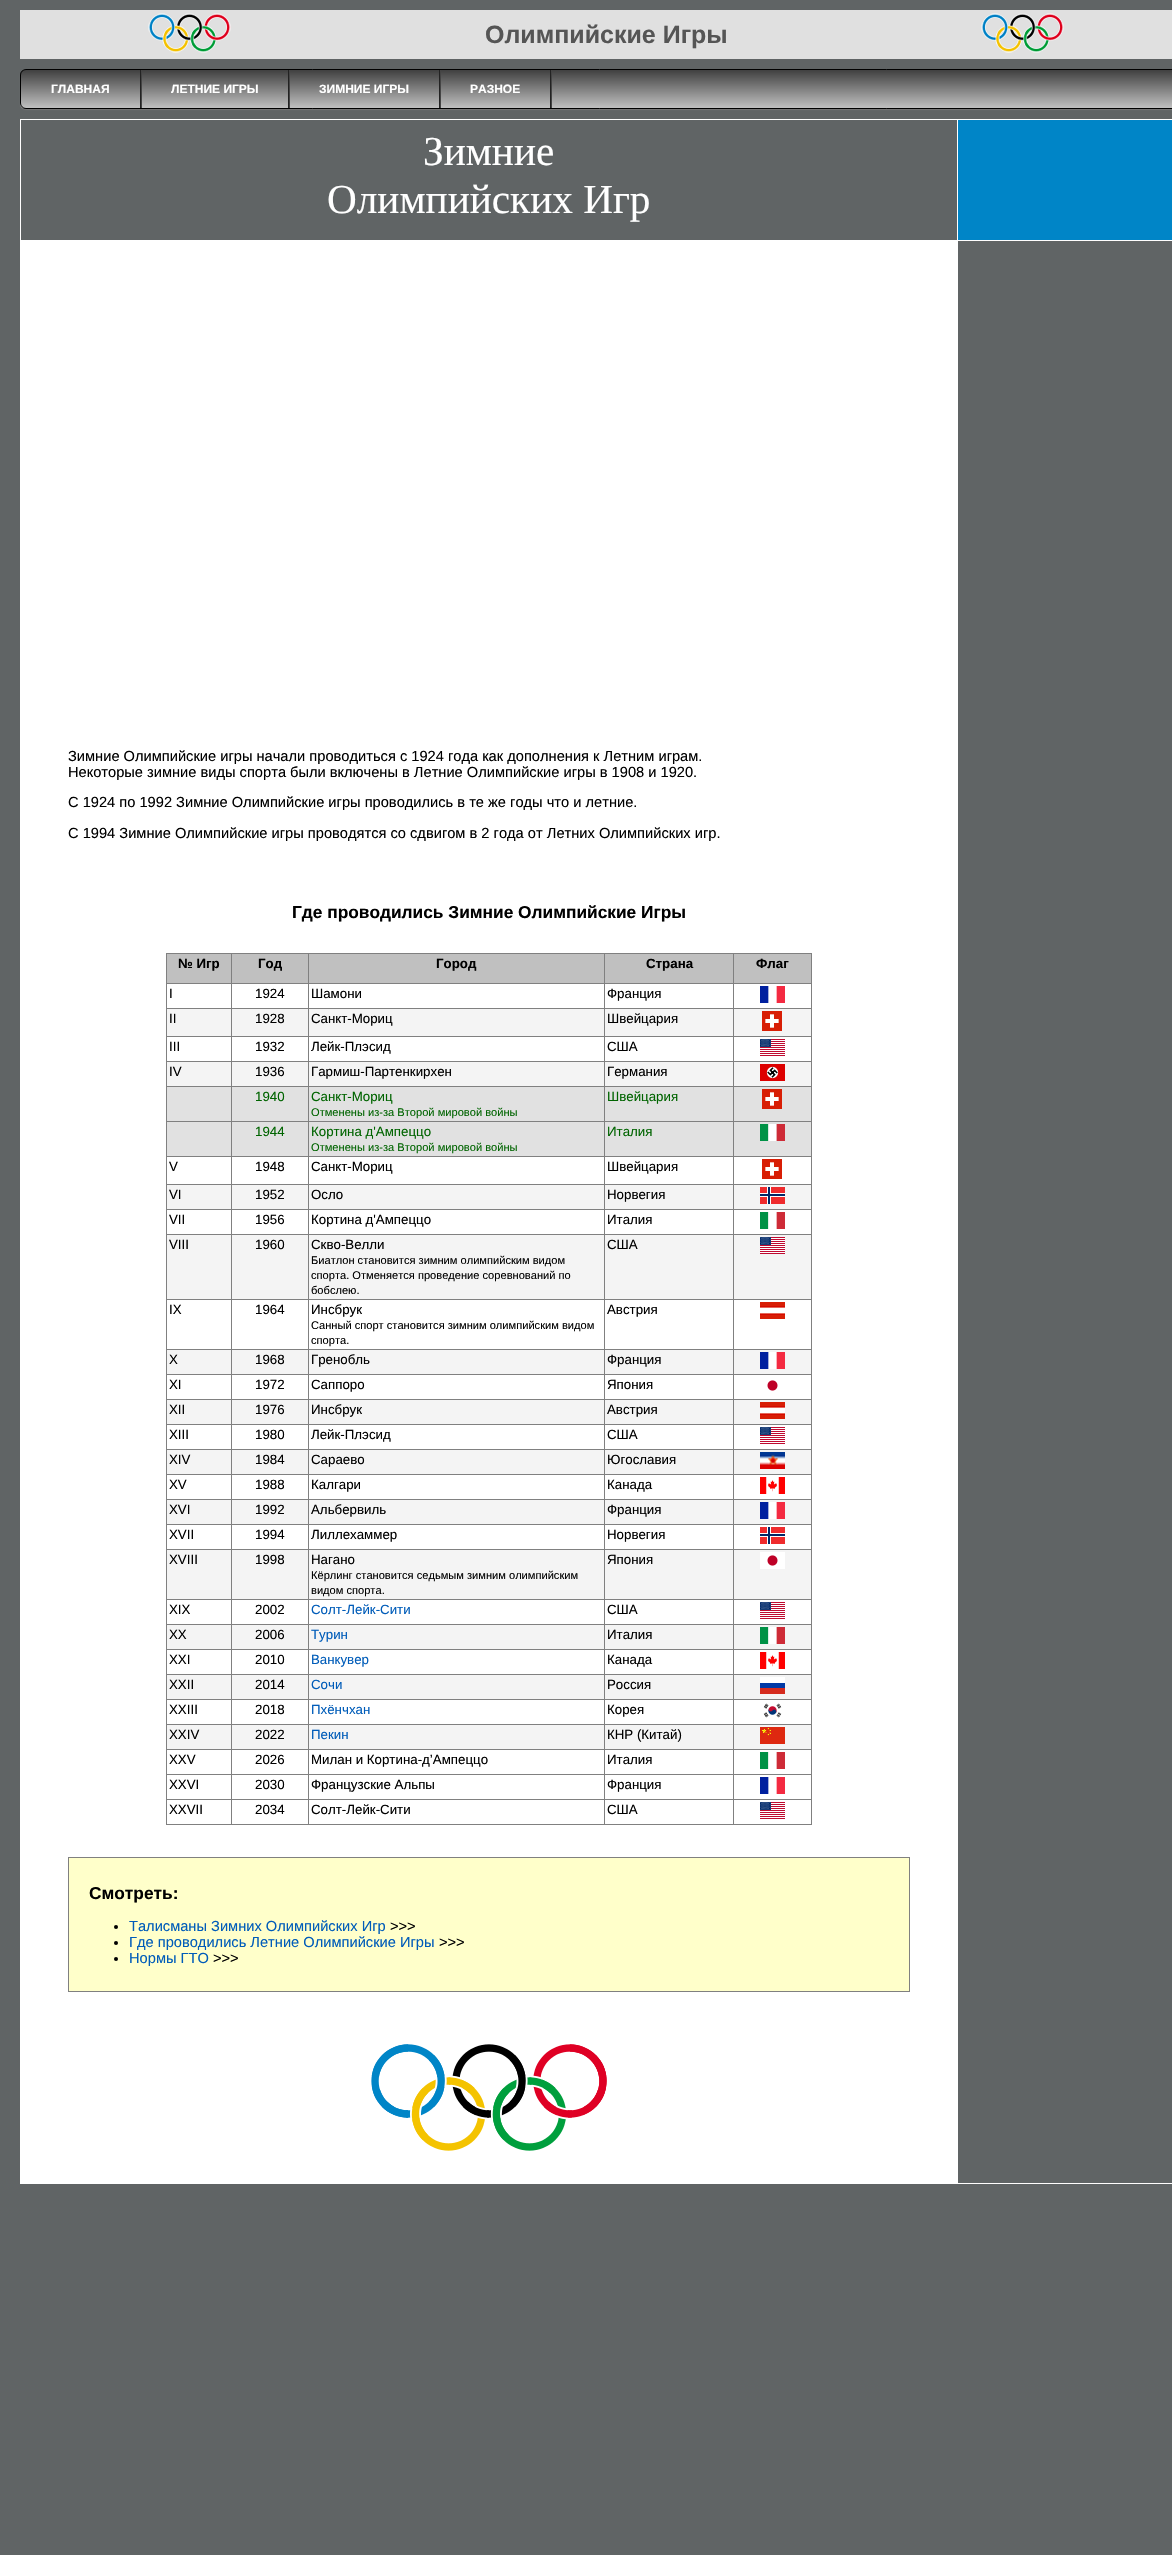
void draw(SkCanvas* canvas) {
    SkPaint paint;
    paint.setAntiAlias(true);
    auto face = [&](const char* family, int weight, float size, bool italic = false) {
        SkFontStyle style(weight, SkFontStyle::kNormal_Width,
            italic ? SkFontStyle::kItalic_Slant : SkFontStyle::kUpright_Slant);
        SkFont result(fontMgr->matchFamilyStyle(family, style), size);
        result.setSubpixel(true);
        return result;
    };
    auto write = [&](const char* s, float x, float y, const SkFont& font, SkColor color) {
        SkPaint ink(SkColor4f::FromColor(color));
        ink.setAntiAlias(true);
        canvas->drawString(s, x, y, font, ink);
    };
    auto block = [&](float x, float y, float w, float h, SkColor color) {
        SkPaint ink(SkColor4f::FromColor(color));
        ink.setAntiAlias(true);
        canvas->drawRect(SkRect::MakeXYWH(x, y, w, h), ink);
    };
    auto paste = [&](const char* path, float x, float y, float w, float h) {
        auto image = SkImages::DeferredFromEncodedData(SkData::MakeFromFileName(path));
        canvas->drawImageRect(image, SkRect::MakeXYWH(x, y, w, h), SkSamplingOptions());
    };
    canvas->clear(SkColorSetRGB(96, 100, 101));
    block(20, 10, 1152, 49, SkColorSetRGB(224, 224, 224));
    paste("pic1.png", 148, 13, 83, 40);
    auto kFont1 = face("Liberation Sans", 700, 25);
    write("Олимпийские Игры", 485, 43, kFont1, SkColorSetRGB(85, 85, 85));
    paste("pic1.png", 981, 13, 83, 40);
    paint.setColor(SkColorSetRGB(119, 119, 119));
    paint.setMaskFilter(SkMaskFilter::MakeBlur(kNormal_SkBlurStyle, 0.5f));
    canvas->drawRoundRect(SkRect::MakeXYWH(20, 70, 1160, 40), 6, 6, paint);
    paint.setMaskFilter(nullptr);
    canvas->save();
    canvas->clipPath(SkPathBuilder().moveTo(26, 69).lineTo(1188, 69).cubicTo(1191.5f, 69, 1194, 71.5f, 1194, 75).lineTo(1194, 103).cubicTo(1194, 106.5f, 1191.5f, 109, 1188, 109).lineTo(26, 109).cubicTo(22.5f, 109, 20, 106.5f, 20, 103).lineTo(20, 75).cubicTo(20, 71.5f, 22.5f, 69, 26, 69).close().detach(), true);
    {
        const SkColor colors[] = {SkColorSetRGB(64, 64, 64), SkColorSetRGB(192, 192, 192)};
        const float stops[] = {0, 1};
        const SkPoint ends[] = {{607, 70}, {607, 108}};
        paint.setShader(SkGradientShader::MakeLinear(ends, colors, stops, 2, SkTileMode::kClamp));
        paint.setAlpha(255);
    }
    canvas->drawRect(SkRect::MakeXYWH(20, 70, 1152, 38), paint);
    canvas->restore();
    paint.setStyle(SkPaint::kStroke_Style);
    paint.setStrokeWidth(1);
    paint.setShader(nullptr);
    paint.setColor(SK_ColorBLACK);
    canvas->drawRoundRect(SkRect::MakeXYWH(20.5f, 69.5f, 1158, 39), 5.5f, 5.5f, paint);
    block(141, 70, 1, 38, SkColorSetRGB(68, 68, 68));
    block(140, 70, 1, 38, SkColorSetRGB(34, 34, 34));
    auto kFont2 = face("Liberation Sans", 700, 12);
    write("ГЛАВНАЯ", 51, 93, kFont2, SK_ColorWHITE);
    block(289, 70, 1, 38, SkColorSetRGB(68, 68, 68));
    block(288, 70, 1, 38, SkColorSetRGB(34, 34, 34));
    write("ЛЕТНИЕ ИГРЫ", 171, 93, kFont2, SK_ColorWHITE);
    block(440, 70, 1, 38, SkColorSetRGB(68, 68, 68));
    block(439, 70, 1, 38, SkColorSetRGB(34, 34, 34));
    write("ЗИМНИЕ ИГРЫ", 319, 93, kFont2, SK_ColorWHITE);
    block(551, 70, 1, 38, SkColorSetRGB(68, 68, 68));
    block(550, 70, 1, 38, SkColorSetRGB(34, 34, 34));
    write("РАЗНОЕ", 470, 93, kFont2, SK_ColorWHITE);
    block(20, 119, 1152, 1, SK_ColorWHITE);
    block(20, 2183, 1152, 1, SK_ColorWHITE);
    block(20, 119, 1, 2065, SK_ColorWHITE);
    auto kFont3 = face("Liberation Serif", 400, 41.25f);
    write("Зимние", 423, 165, kFont3, SK_ColorWHITE);
    write("Олимпийских Игр", 327, 213, kFont3, SK_ColorWHITE);
    block(958, 120, 214, 120, SkColorSetRGB(0, 133, 199));
    block(957, 240, 215, 1, SK_ColorWHITE);
    block(957, 240, 1, 1944, SK_ColorWHITE);
    block(20, 240, 938, 1, SK_ColorWHITE);
    block(957, 119, 1, 122, SK_ColorWHITE);
    block(21, 241, 936, 1942, SK_ColorWHITE);
    auto kFont4 = face("Liberation Sans", 400, 14.65f);
    write("Зимние Олимпийские игры начали проводиться с 1924 года как дополнения к Летним играм.", 68, 761, kFont4, SK_ColorBLACK);
    write("Некоторые зимние виды спорта были включены в Летние Олимпийские игры в 1908 и 1920.", 68, 777, kFont4, SK_ColorBLACK);
    write("С 1924 по 1992 Зимние Олимпийские игры проводились в те же годы что и летние.", 68, 807, kFont4, SK_ColorBLACK);
    write("С 1994 Зимние Олимпийские игры проводятся со сдвигом в 2 года от Летних Олимпийских игр.", 68, 838, kFont4, SK_ColorBLACK);
    auto kFont5 = face("Liberation Sans", 700, 17.3f);
    write("Где проводились Зимние Олимпийские Игры", 292, 918, kFont5, SK_ColorBLACK);
    block(166, 953, 646, 1, SkColorSetRGB(128, 128, 128));
    block(811, 953, 1, 872, SkColorSetRGB(128, 128, 128));
    block(166, 1824, 646, 1, SkColorSetRGB(128, 128, 128));
    block(166, 953, 1, 872, SkColorSetRGB(128, 128, 128));
    block(167, 954, 644, 29, SkColorSetRGB(192, 192, 192));
    auto kFont6 = face("Liberation Sans", 700, 13.3f);
    write("№ Игр", 178, 968, kFont6, SK_ColorBLACK);
    block(733, 983, 79, 1, SkColorSetRGB(128, 128, 128));
    block(733, 1008, 79, 1, SkColorSetRGB(128, 128, 128));
    block(167, 1009, 644, 27, SkColorSetRGB(244, 244, 244));
    block(733, 1036, 79, 1, SkColorSetRGB(128, 128, 128));
    block(733, 1061, 79, 1, SkColorSetRGB(128, 128, 128));
    block(167, 1062, 644, 24, SkColorSetRGB(244, 244, 244));
    block(733, 1086, 79, 1, SkColorSetRGB(128, 128, 128));
    block(167, 1087, 644, 34, SkColorSetRGB(225, 225, 225));
    block(733, 1121, 79, 1, SkColorSetRGB(128, 128, 128));
    block(167, 1122, 644, 34, SkColorSetRGB(225, 225, 225));
    block(733, 1156, 79, 1, SkColorSetRGB(128, 128, 128));
    block(733, 1184, 79, 1, SkColorSetRGB(128, 128, 128));
    block(167, 1185, 644, 24, SkColorSetRGB(244, 244, 244));
    block(733, 1209, 79, 1, SkColorSetRGB(128, 128, 128));
    block(733, 1234, 79, 1, SkColorSetRGB(128, 128, 128));
    block(167, 1235, 644, 64, SkColorSetRGB(244, 244, 244));
    block(733, 1299, 79, 1, SkColorSetRGB(128, 128, 128));
    block(733, 1349, 79, 1, SkColorSetRGB(128, 128, 128));
    block(167, 1350, 644, 24, SkColorSetRGB(244, 244, 244));
    block(733, 1374, 79, 1, SkColorSetRGB(128, 128, 128));
    block(733, 1399, 79, 1, SkColorSetRGB(128, 128, 128));
    block(167, 1400, 644, 24, SkColorSetRGB(244, 244, 244));
    block(733, 1424, 79, 1, SkColorSetRGB(128, 128, 128));
    block(733, 1449, 79, 1, SkColorSetRGB(128, 128, 128));
    block(167, 1450, 644, 24, SkColorSetRGB(244, 244, 244));
    block(733, 1474, 79, 1, SkColorSetRGB(128, 128, 128));
    block(733, 1499, 79, 1, SkColorSetRGB(128, 128, 128));
    block(167, 1500, 644, 24, SkColorSetRGB(244, 244, 244));
    block(733, 1524, 79, 1, SkColorSetRGB(128, 128, 128));
    block(733, 1549, 79, 1, SkColorSetRGB(128, 128, 128));
    block(167, 1550, 644, 49, SkColorSetRGB(244, 244, 244));
    block(733, 1599, 79, 1, SkColorSetRGB(128, 128, 128));
    block(733, 1624, 79, 1, SkColorSetRGB(128, 128, 128));
    block(167, 1625, 644, 24, SkColorSetRGB(244, 244, 244));
    block(733, 1649, 79, 1, SkColorSetRGB(128, 128, 128));
    block(733, 1674, 79, 1, SkColorSetRGB(128, 128, 128));
    block(167, 1675, 644, 24, SkColorSetRGB(244, 244, 244));
    block(733, 1699, 79, 1, SkColorSetRGB(128, 128, 128));
    block(733, 1724, 79, 1, SkColorSetRGB(128, 128, 128));
    block(167, 1725, 644, 24, SkColorSetRGB(244, 244, 244));
    block(733, 1749, 79, 1, SkColorSetRGB(128, 128, 128));
    block(733, 1774, 79, 1, SkColorSetRGB(128, 128, 128));
    block(733, 1799, 79, 1, SkColorSetRGB(128, 128, 128));
    block(733, 1799, 1, 26, SkColorSetRGB(128, 128, 128));
    block(604, 1799, 130, 1, SkColorSetRGB(128, 128, 128));
    block(733, 1774, 1, 26, SkColorSetRGB(128, 128, 128));
    block(604, 1774, 130, 1, SkColorSetRGB(128, 128, 128));
    block(733, 1749, 1, 26, SkColorSetRGB(128, 128, 128));
    block(604, 1749, 130, 1, SkColorSetRGB(128, 128, 128));
    block(733, 1724, 1, 26, SkColorSetRGB(128, 128, 128));
    block(604, 1724, 130, 1, SkColorSetRGB(128, 128, 128));
    block(733, 1699, 1, 26, SkColorSetRGB(128, 128, 128));
    block(604, 1699, 130, 1, SkColorSetRGB(128, 128, 128));
    block(733, 1674, 1, 26, SkColorSetRGB(128, 128, 128));
    block(604, 1674, 130, 1, SkColorSetRGB(128, 128, 128));
    block(733, 1649, 1, 26, SkColorSetRGB(128, 128, 128));
    block(604, 1649, 130, 1, SkColorSetRGB(128, 128, 128));
    block(733, 1624, 1, 26, SkColorSetRGB(128, 128, 128));
    block(604, 1624, 130, 1, SkColorSetRGB(128, 128, 128));
    block(733, 1599, 1, 26, SkColorSetRGB(128, 128, 128));
    block(604, 1599, 130, 1, SkColorSetRGB(128, 128, 128));
    block(733, 1549, 1, 51, SkColorSetRGB(128, 128, 128));
    block(604, 1549, 130, 1, SkColorSetRGB(128, 128, 128));
    block(733, 1524, 1, 26, SkColorSetRGB(128, 128, 128));
    block(604, 1524, 130, 1, SkColorSetRGB(128, 128, 128));
    block(733, 1499, 1, 26, SkColorSetRGB(128, 128, 128));
    block(604, 1499, 130, 1, SkColorSetRGB(128, 128, 128));
    block(733, 1474, 1, 26, SkColorSetRGB(128, 128, 128));
    block(604, 1474, 130, 1, SkColorSetRGB(128, 128, 128));
    block(733, 1449, 1, 26, SkColorSetRGB(128, 128, 128));
    block(604, 1449, 130, 1, SkColorSetRGB(128, 128, 128));
    block(733, 1424, 1, 26, SkColorSetRGB(128, 128, 128));
    block(604, 1424, 130, 1, SkColorSetRGB(128, 128, 128));
    block(733, 1399, 1, 26, SkColorSetRGB(128, 128, 128));
    block(604, 1399, 130, 1, SkColorSetRGB(128, 128, 128));
    block(733, 1374, 1, 26, SkColorSetRGB(128, 128, 128));
    block(604, 1374, 130, 1, SkColorSetRGB(128, 128, 128));
    block(733, 1349, 1, 26, SkColorSetRGB(128, 128, 128));
    block(604, 1349, 130, 1, SkColorSetRGB(128, 128, 128));
    block(733, 1299, 1, 51, SkColorSetRGB(128, 128, 128));
    block(604, 1299, 130, 1, SkColorSetRGB(128, 128, 128));
    block(733, 1234, 1, 66, SkColorSetRGB(128, 128, 128));
    block(604, 1234, 130, 1, SkColorSetRGB(128, 128, 128));
    block(733, 1209, 1, 26, SkColorSetRGB(128, 128, 128));
    block(604, 1209, 130, 1, SkColorSetRGB(128, 128, 128));
    block(733, 1184, 1, 26, SkColorSetRGB(128, 128, 128));
    block(604, 1184, 130, 1, SkColorSetRGB(128, 128, 128));
    block(733, 1156, 1, 29, SkColorSetRGB(128, 128, 128));
    block(604, 1156, 130, 1, SkColorSetRGB(128, 128, 128));
    block(733, 1121, 1, 36, SkColorSetRGB(128, 128, 128));
    block(604, 1121, 130, 1, SkColorSetRGB(128, 128, 128));
    block(733, 1086, 1, 36, SkColorSetRGB(128, 128, 128));
    block(604, 1086, 130, 1, SkColorSetRGB(128, 128, 128));
    block(733, 1061, 1, 26, SkColorSetRGB(128, 128, 128));
    block(604, 1061, 130, 1, SkColorSetRGB(128, 128, 128));
    block(733, 1036, 1, 26, SkColorSetRGB(128, 128, 128));
    block(604, 1036, 130, 1, SkColorSetRGB(128, 128, 128));
    block(733, 1008, 1, 29, SkColorSetRGB(128, 128, 128));
    block(604, 1008, 130, 1, SkColorSetRGB(128, 128, 128));
    block(733, 983, 1, 26, SkColorSetRGB(128, 128, 128));
    block(604, 983, 130, 1, SkColorSetRGB(128, 128, 128));
    block(604, 1799, 1, 26, SkColorSetRGB(128, 128, 128));
    block(308, 1799, 297, 1, SkColorSetRGB(128, 128, 128));
    block(604, 1774, 1, 26, SkColorSetRGB(128, 128, 128));
    block(308, 1774, 297, 1, SkColorSetRGB(128, 128, 128));
    block(604, 1749, 1, 26, SkColorSetRGB(128, 128, 128));
    block(308, 1749, 297, 1, SkColorSetRGB(128, 128, 128));
    block(604, 1724, 1, 26, SkColorSetRGB(128, 128, 128));
    block(308, 1724, 297, 1, SkColorSetRGB(128, 128, 128));
    block(604, 1699, 1, 26, SkColorSetRGB(128, 128, 128));
    block(308, 1699, 297, 1, SkColorSetRGB(128, 128, 128));
    block(604, 1674, 1, 26, SkColorSetRGB(128, 128, 128));
    block(308, 1674, 297, 1, SkColorSetRGB(128, 128, 128));
    block(604, 1649, 1, 26, SkColorSetRGB(128, 128, 128));
    block(308, 1649, 297, 1, SkColorSetRGB(128, 128, 128));
    block(604, 1624, 1, 26, SkColorSetRGB(128, 128, 128));
    block(308, 1624, 297, 1, SkColorSetRGB(128, 128, 128));
    block(604, 1599, 1, 26, SkColorSetRGB(128, 128, 128));
    block(308, 1599, 297, 1, SkColorSetRGB(128, 128, 128));
    block(604, 1549, 1, 51, SkColorSetRGB(128, 128, 128));
    block(308, 1549, 297, 1, SkColorSetRGB(128, 128, 128));
    block(604, 1524, 1, 26, SkColorSetRGB(128, 128, 128));
    block(308, 1524, 297, 1, SkColorSetRGB(128, 128, 128));
    block(604, 1499, 1, 26, SkColorSetRGB(128, 128, 128));
    block(308, 1499, 297, 1, SkColorSetRGB(128, 128, 128));
    block(604, 1474, 1, 26, SkColorSetRGB(128, 128, 128));
    block(308, 1474, 297, 1, SkColorSetRGB(128, 128, 128));
    block(604, 1449, 1, 26, SkColorSetRGB(128, 128, 128));
    block(308, 1449, 297, 1, SkColorSetRGB(128, 128, 128));
    block(604, 1424, 1, 26, SkColorSetRGB(128, 128, 128));
    block(308, 1424, 297, 1, SkColorSetRGB(128, 128, 128));
    block(604, 1399, 1, 26, SkColorSetRGB(128, 128, 128));
    block(308, 1399, 297, 1, SkColorSetRGB(128, 128, 128));
    block(604, 1374, 1, 26, SkColorSetRGB(128, 128, 128));
    block(308, 1374, 297, 1, SkColorSetRGB(128, 128, 128));
    block(604, 1349, 1, 26, SkColorSetRGB(128, 128, 128));
    block(308, 1349, 297, 1, SkColorSetRGB(128, 128, 128));
    block(604, 1299, 1, 51, SkColorSetRGB(128, 128, 128));
    block(308, 1299, 297, 1, SkColorSetRGB(128, 128, 128));
    block(604, 1234, 1, 66, SkColorSetRGB(128, 128, 128));
    block(308, 1234, 297, 1, SkColorSetRGB(128, 128, 128));
    block(604, 1209, 1, 26, SkColorSetRGB(128, 128, 128));
    block(308, 1209, 297, 1, SkColorSetRGB(128, 128, 128));
    block(604, 1184, 1, 26, SkColorSetRGB(128, 128, 128));
    block(308, 1184, 297, 1, SkColorSetRGB(128, 128, 128));
    block(604, 1156, 1, 29, SkColorSetRGB(128, 128, 128));
    block(308, 1156, 297, 1, SkColorSetRGB(128, 128, 128));
    block(604, 1121, 1, 36, SkColorSetRGB(128, 128, 128));
    block(308, 1121, 297, 1, SkColorSetRGB(128, 128, 128));
    block(604, 1086, 1, 36, SkColorSetRGB(128, 128, 128));
    block(308, 1086, 297, 1, SkColorSetRGB(128, 128, 128));
    block(604, 1061, 1, 26, SkColorSetRGB(128, 128, 128));
    block(308, 1061, 297, 1, SkColorSetRGB(128, 128, 128));
    block(604, 1036, 1, 26, SkColorSetRGB(128, 128, 128));
    block(308, 1036, 297, 1, SkColorSetRGB(128, 128, 128));
    block(604, 1008, 1, 29, SkColorSetRGB(128, 128, 128));
    block(308, 1008, 297, 1, SkColorSetRGB(128, 128, 128));
    block(604, 983, 1, 26, SkColorSetRGB(128, 128, 128));
    block(308, 983, 297, 1, SkColorSetRGB(128, 128, 128));
    block(308, 1799, 1, 26, SkColorSetRGB(128, 128, 128));
    block(231, 1799, 78, 1, SkColorSetRGB(128, 128, 128));
    block(308, 1774, 1, 26, SkColorSetRGB(128, 128, 128));
    block(231, 1774, 78, 1, SkColorSetRGB(128, 128, 128));
    block(308, 1749, 1, 26, SkColorSetRGB(128, 128, 128));
    block(231, 1749, 78, 1, SkColorSetRGB(128, 128, 128));
    block(308, 1724, 1, 26, SkColorSetRGB(128, 128, 128));
    block(231, 1724, 78, 1, SkColorSetRGB(128, 128, 128));
    block(308, 1699, 1, 26, SkColorSetRGB(128, 128, 128));
    block(231, 1699, 78, 1, SkColorSetRGB(128, 128, 128));
    block(308, 1674, 1, 26, SkColorSetRGB(128, 128, 128));
    block(231, 1674, 78, 1, SkColorSetRGB(128, 128, 128));
    block(308, 1649, 1, 26, SkColorSetRGB(128, 128, 128));
    block(231, 1649, 78, 1, SkColorSetRGB(128, 128, 128));
    block(308, 1624, 1, 26, SkColorSetRGB(128, 128, 128));
    block(231, 1624, 78, 1, SkColorSetRGB(128, 128, 128));
    block(308, 1599, 1, 26, SkColorSetRGB(128, 128, 128));
    block(231, 1599, 78, 1, SkColorSetRGB(128, 128, 128));
    block(308, 1549, 1, 51, SkColorSetRGB(128, 128, 128));
    block(231, 1549, 78, 1, SkColorSetRGB(128, 128, 128));
    block(308, 1524, 1, 26, SkColorSetRGB(128, 128, 128));
    block(231, 1524, 78, 1, SkColorSetRGB(128, 128, 128));
    block(308, 1499, 1, 26, SkColorSetRGB(128, 128, 128));
    block(231, 1499, 78, 1, SkColorSetRGB(128, 128, 128));
    block(308, 1474, 1, 26, SkColorSetRGB(128, 128, 128));
    block(231, 1474, 78, 1, SkColorSetRGB(128, 128, 128));
    block(308, 1449, 1, 26, SkColorSetRGB(128, 128, 128));
    block(231, 1449, 78, 1, SkColorSetRGB(128, 128, 128));
    block(308, 1424, 1, 26, SkColorSetRGB(128, 128, 128));
    block(231, 1424, 78, 1, SkColorSetRGB(128, 128, 128));
    block(308, 1399, 1, 26, SkColorSetRGB(128, 128, 128));
    block(231, 1399, 78, 1, SkColorSetRGB(128, 128, 128));
    block(308, 1374, 1, 26, SkColorSetRGB(128, 128, 128));
    block(231, 1374, 78, 1, SkColorSetRGB(128, 128, 128));
    block(308, 1349, 1, 26, SkColorSetRGB(128, 128, 128));
    block(231, 1349, 78, 1, SkColorSetRGB(128, 128, 128));
    block(308, 1299, 1, 51, SkColorSetRGB(128, 128, 128));
    block(231, 1299, 78, 1, SkColorSetRGB(128, 128, 128));
    block(308, 1234, 1, 66, SkColorSetRGB(128, 128, 128));
    block(231, 1234, 78, 1, SkColorSetRGB(128, 128, 128));
    block(308, 1209, 1, 26, SkColorSetRGB(128, 128, 128));
    block(231, 1209, 78, 1, SkColorSetRGB(128, 128, 128));
    block(308, 1184, 1, 26, SkColorSetRGB(128, 128, 128));
    block(231, 1184, 78, 1, SkColorSetRGB(128, 128, 128));
    block(308, 1156, 1, 29, SkColorSetRGB(128, 128, 128));
    block(231, 1156, 78, 1, SkColorSetRGB(128, 128, 128));
    block(308, 1121, 1, 36, SkColorSetRGB(128, 128, 128));
    block(231, 1121, 78, 1, SkColorSetRGB(128, 128, 128));
    block(308, 1086, 1, 36, SkColorSetRGB(128, 128, 128));
    block(231, 1086, 78, 1, SkColorSetRGB(128, 128, 128));
    block(308, 1061, 1, 26, SkColorSetRGB(128, 128, 128));
    block(231, 1061, 78, 1, SkColorSetRGB(128, 128, 128));
    block(308, 1036, 1, 26, SkColorSetRGB(128, 128, 128));
    block(231, 1036, 78, 1, SkColorSetRGB(128, 128, 128));
    block(308, 1008, 1, 29, SkColorSetRGB(128, 128, 128));
    block(231, 1008, 78, 1, SkColorSetRGB(128, 128, 128));
    block(308, 983, 1, 26, SkColorSetRGB(128, 128, 128));
    block(231, 983, 78, 1, SkColorSetRGB(128, 128, 128));
    block(231, 1799, 1, 26, SkColorSetRGB(128, 128, 128));
    block(166, 1799, 66, 1, SkColorSetRGB(128, 128, 128));
    block(231, 1774, 1, 26, SkColorSetRGB(128, 128, 128));
    block(166, 1774, 66, 1, SkColorSetRGB(128, 128, 128));
    block(231, 1749, 1, 26, SkColorSetRGB(128, 128, 128));
    block(166, 1749, 66, 1, SkColorSetRGB(128, 128, 128));
    block(231, 1724, 1, 26, SkColorSetRGB(128, 128, 128));
    block(166, 1724, 66, 1, SkColorSetRGB(128, 128, 128));
    block(231, 1699, 1, 26, SkColorSetRGB(128, 128, 128));
    block(166, 1699, 66, 1, SkColorSetRGB(128, 128, 128));
    block(231, 1674, 1, 26, SkColorSetRGB(128, 128, 128));
    block(166, 1674, 66, 1, SkColorSetRGB(128, 128, 128));
    block(231, 1649, 1, 26, SkColorSetRGB(128, 128, 128));
    block(166, 1649, 66, 1, SkColorSetRGB(128, 128, 128));
    block(231, 1624, 1, 26, SkColorSetRGB(128, 128, 128));
    block(166, 1624, 66, 1, SkColorSetRGB(128, 128, 128));
    block(231, 1599, 1, 26, SkColorSetRGB(128, 128, 128));
    block(166, 1599, 66, 1, SkColorSetRGB(128, 128, 128));
    block(231, 1549, 1, 51, SkColorSetRGB(128, 128, 128));
    block(166, 1549, 66, 1, SkColorSetRGB(128, 128, 128));
    block(231, 1524, 1, 26, SkColorSetRGB(128, 128, 128));
    block(166, 1524, 66, 1, SkColorSetRGB(128, 128, 128));
    block(231, 1499, 1, 26, SkColorSetRGB(128, 128, 128));
    block(166, 1499, 66, 1, SkColorSetRGB(128, 128, 128));
    block(231, 1474, 1, 26, SkColorSetRGB(128, 128, 128));
    block(166, 1474, 66, 1, SkColorSetRGB(128, 128, 128));
    block(231, 1449, 1, 26, SkColorSetRGB(128, 128, 128));
    block(166, 1449, 66, 1, SkColorSetRGB(128, 128, 128));
    block(231, 1424, 1, 26, SkColorSetRGB(128, 128, 128));
    block(166, 1424, 66, 1, SkColorSetRGB(128, 128, 128));
    block(231, 1399, 1, 26, SkColorSetRGB(128, 128, 128));
    block(166, 1399, 66, 1, SkColorSetRGB(128, 128, 128));
    block(231, 1374, 1, 26, SkColorSetRGB(128, 128, 128));
    block(166, 1374, 66, 1, SkColorSetRGB(128, 128, 128));
    block(231, 1349, 1, 26, SkColorSetRGB(128, 128, 128));
    block(166, 1349, 66, 1, SkColorSetRGB(128, 128, 128));
    block(231, 1299, 1, 51, SkColorSetRGB(128, 128, 128));
    block(166, 1299, 66, 1, SkColorSetRGB(128, 128, 128));
    block(231, 1234, 1, 66, SkColorSetRGB(128, 128, 128));
    block(166, 1234, 66, 1, SkColorSetRGB(128, 128, 128));
    block(231, 1209, 1, 26, SkColorSetRGB(128, 128, 128));
    block(166, 1209, 66, 1, SkColorSetRGB(128, 128, 128));
    block(231, 1184, 1, 26, SkColorSetRGB(128, 128, 128));
    block(166, 1184, 66, 1, SkColorSetRGB(128, 128, 128));
    block(231, 1156, 1, 29, SkColorSetRGB(128, 128, 128));
    block(166, 1156, 66, 1, SkColorSetRGB(128, 128, 128));
    block(231, 1121, 1, 36, SkColorSetRGB(128, 128, 128));
    block(166, 1121, 66, 1, SkColorSetRGB(128, 128, 128));
    block(231, 1086, 1, 36, SkColorSetRGB(128, 128, 128));
    block(166, 1086, 66, 1, SkColorSetRGB(128, 128, 128));
    block(231, 1061, 1, 26, SkColorSetRGB(128, 128, 128));
    block(166, 1061, 66, 1, SkColorSetRGB(128, 128, 128));
    block(231, 1036, 1, 26, SkColorSetRGB(128, 128, 128));
    block(166, 1036, 66, 1, SkColorSetRGB(128, 128, 128));
    block(231, 1008, 1, 29, SkColorSetRGB(128, 128, 128));
    block(166, 1008, 66, 1, SkColorSetRGB(128, 128, 128));
    block(231, 983, 1, 26, SkColorSetRGB(128, 128, 128));
    block(166, 983, 66, 1, SkColorSetRGB(128, 128, 128));
    block(231, 953, 1, 31, SkColorSetRGB(128, 128, 128));
    write("Год", 258, 968, kFont6, SK_ColorBLACK);
    block(308, 953, 1, 31, SkColorSetRGB(128, 128, 128));
    write("Город", 436, 968, kFont6, SK_ColorBLACK);
    block(604, 953, 1, 31, SkColorSetRGB(128, 128, 128));
    write("Страна", 646, 968, kFont6, SK_ColorBLACK);
    block(733, 953, 1, 31, SkColorSetRGB(128, 128, 128));
    write("Флаг", 756, 968, kFont6, SK_ColorBLACK);
    auto kFont7 = face("Liberation Sans", 400, 13.3f);
    write("I", 169, 998, kFont7, SK_ColorBLACK);
    write("1924", 255, 998, kFont7, SK_ColorBLACK);
    write("Шамони", 311, 998, kFont7, SK_ColorBLACK);
    write("Франция", 607, 998, kFont7, SK_ColorBLACK);
    paste("pic2.png", 760, 986, 25, 17);
    write("II", 169, 1023, kFont7, SK_ColorBLACK);
    write("1928", 255, 1023, kFont7, SK_ColorBLACK);
    write("Санкт-Мориц", 311, 1023, kFont7, SK_ColorBLACK);
    write("Швейцария", 607, 1023, kFont7, SK_ColorBLACK);
    paste("pic3.png", 762, 1011, 20, 20);
    write("III", 169, 1051, kFont7, SK_ColorBLACK);
    write("1932", 255, 1051, kFont7, SK_ColorBLACK);
    write("Лейк-Плэсид", 311, 1051, kFont7, SK_ColorBLACK);
    write("США", 607, 1051, kFont7, SK_ColorBLACK);
    paste("pic4.png", 760, 1039, 25, 17);
    write("IV", 169, 1076, kFont7, SK_ColorBLACK);
    write("1936", 255, 1076, kFont7, SK_ColorBLACK);
    write("Гармиш-Партенкирхен", 311, 1076, kFont7, SK_ColorBLACK);
    write("Германия", 607, 1076, kFont7, SK_ColorBLACK);
    paste("pic5.png", 760, 1064, 25, 17);
    write("1940", 255, 1101, kFont7, SkColorSetRGB(0, 100, 0));
    write("Санкт-Мориц", 311, 1101, kFont7, SkColorSetRGB(0, 100, 0));
    auto kFont8 = face("Liberation Sans", 400, 11.1f);
    write("Отменены из-за Второй мировой войны", 311, 1116, kFont8, SkColorSetRGB(0, 100, 0));
    write("Швейцария", 607, 1101, kFont7, SkColorSetRGB(0, 100, 0));
    paste("pic3.png", 762, 1089, 20, 20);
    write("1944", 255, 1136, kFont7, SkColorSetRGB(0, 100, 0));
    write("Кортина д'Ампеццо", 311, 1136, kFont7, SkColorSetRGB(0, 100, 0));
    write("Отменены из-за Второй мировой войны", 311, 1151, kFont8, SkColorSetRGB(0, 100, 0));
    write("Италия", 607, 1136, kFont7, SkColorSetRGB(0, 100, 0));
    paste("pic6.png", 760, 1124, 25, 17);
    write("V", 169, 1171, kFont7, SK_ColorBLACK);
    write("1948", 255, 1171, kFont7, SK_ColorBLACK);
    write("Санкт-Мориц", 311, 1171, kFont7, SK_ColorBLACK);
    write("Швейцария", 607, 1171, kFont7, SK_ColorBLACK);
    paste("pic3.png", 762, 1159, 20, 20);
    write("VI", 169, 1199, kFont7, SK_ColorBLACK);
    write("1952", 255, 1199, kFont7, SK_ColorBLACK);
    write("Осло", 311, 1199, kFont7, SK_ColorBLACK);
    write("Норвегия", 607, 1199, kFont7, SK_ColorBLACK);
    paste("pic7.png", 760, 1187, 25, 17);
    write("VII", 169, 1224, kFont7, SK_ColorBLACK);
    write("1956", 255, 1224, kFont7, SK_ColorBLACK);
    write("Кортина д'Ампеццо", 311, 1224, kFont7, SK_ColorBLACK);
    write("Италия", 607, 1224, kFont7, SK_ColorBLACK);
    paste("pic8.png", 760, 1212, 25, 17);
    write("VIII", 169, 1249, kFont7, SK_ColorBLACK);
    write("1960", 255, 1249, kFont7, SK_ColorBLACK);
    write("Скво-Велли", 311, 1249, kFont7, SK_ColorBLACK);
    write("Биатлон становится зимним олимпийским видом", 311, 1264, kFont8, SK_ColorBLACK);
    write("спорта. Отменяется проведение соревнований по", 311, 1279, kFont8, SK_ColorBLACK);
    write("бобслею.", 311, 1294, kFont8, SK_ColorBLACK);
    write("США", 607, 1249, kFont7, SK_ColorBLACK);
    paste("pic4.png", 760, 1237, 25, 17);
    write("IX", 169, 1314, kFont7, SK_ColorBLACK);
    write("1964", 255, 1314, kFont7, SK_ColorBLACK);
    write("Инсбрук", 311, 1314, kFont7, SK_ColorBLACK);
    write("Санный спорт становится зимним олимпийским видом", 311, 1329, kFont8, SK_ColorBLACK);
    write("спорта.", 311, 1344, kFont8, SK_ColorBLACK);
    write("Австрия", 607, 1314, kFont7, SK_ColorBLACK);
    paste("pic9.png", 760, 1302, 25, 17);
    write("X", 169, 1364, kFont7, SK_ColorBLACK);
    write("1968", 255, 1364, kFont7, SK_ColorBLACK);
    write("Гренобль", 311, 1364, kFont7, SK_ColorBLACK);
    write("Франция", 607, 1364, kFont7, SK_ColorBLACK);
    paste("pic2.png", 760, 1352, 25, 17);
    write("XI", 169, 1389, kFont7, SK_ColorBLACK);
    write("1972", 255, 1389, kFont7, SK_ColorBLACK);
    write("Саппоро", 311, 1389, kFont7, SK_ColorBLACK);
    write("Япония", 607, 1389, kFont7, SK_ColorBLACK);
    paste("pic10.png", 767, 1380, 11, 11);
    write("XII", 169, 1414, kFont7, SK_ColorBLACK);
    write("1976", 255, 1414, kFont7, SK_ColorBLACK);
    write("Инсбрук", 311, 1414, kFont7, SK_ColorBLACK);
    write("Австрия", 607, 1414, kFont7, SK_ColorBLACK);
    paste("pic9.png", 760, 1402, 25, 17);
    write("XIII", 169, 1439, kFont7, SK_ColorBLACK);
    write("1980", 255, 1439, kFont7, SK_ColorBLACK);
    write("Лейк-Плэсид", 311, 1439, kFont7, SK_ColorBLACK);
    write("США", 607, 1439, kFont7, SK_ColorBLACK);
    paste("pic4.png", 760, 1427, 25, 17);
    write("XIV", 169, 1464, kFont7, SK_ColorBLACK);
    write("1984", 255, 1464, kFont7, SK_ColorBLACK);
    write("Сараево", 311, 1464, kFont7, SK_ColorBLACK);
    write("Югославия", 607, 1464, kFont7, SK_ColorBLACK);
    paste("pic11.png", 760, 1452, 25, 17);
    write("XV", 169, 1489, kFont7, SK_ColorBLACK);
    write("1988", 255, 1489, kFont7, SK_ColorBLACK);
    write("Калгари", 311, 1489, kFont7, SK_ColorBLACK);
    write("Канада", 607, 1489, kFont7, SK_ColorBLACK);
    paste("pic12.png", 760, 1477, 25, 17);
    write("XVI", 169, 1514, kFont7, SK_ColorBLACK);
    write("1992", 255, 1514, kFont7, SK_ColorBLACK);
    write("Альбервиль", 311, 1514, kFont7, SK_ColorBLACK);
    write("Франция", 607, 1514, kFont7, SK_ColorBLACK);
    paste("pic2.png", 760, 1502, 25, 17);
    write("XVII", 169, 1539, kFont7, SK_ColorBLACK);
    write("1994", 255, 1539, kFont7, SK_ColorBLACK);
    write("Лиллехаммер", 311, 1539, kFont7, SK_ColorBLACK);
    write("Норвегия", 607, 1539, kFont7, SK_ColorBLACK);
    paste("pic7.png", 760, 1527, 25, 17);
    write("XVIII", 169, 1564, kFont7, SK_ColorBLACK);
    write("1998", 255, 1564, kFont7, SK_ColorBLACK);
    write("Нагано", 311, 1564, kFont7, SK_ColorBLACK);
    write("Кёрлинг становится седьмым зимним олимпийским", 311, 1579, kFont8, SK_ColorBLACK);
    write("видом спорта.", 311, 1594, kFont8, SK_ColorBLACK);
    write("Япония", 607, 1564, kFont7, SK_ColorBLACK);
    paste("pic13.png", 760, 1552, 25, 17);
    write("XIX", 169, 1614, kFont7, SK_ColorBLACK);
    write("2002", 255, 1614, kFont7, SK_ColorBLACK);
    write("Солт-Лейк-Сити", 311, 1614, kFont7, SkColorSetRGB(0, 92, 185));
    write("США", 607, 1614, kFont7, SK_ColorBLACK);
    paste("pic4.png", 760, 1602, 25, 17);
    write("XX", 169, 1639, kFont7, SK_ColorBLACK);
    write("2006", 255, 1639, kFont7, SK_ColorBLACK);
    write("Турин", 311, 1639, kFont7, SkColorSetRGB(0, 92, 185));
    write("Италия", 607, 1639, kFont7, SK_ColorBLACK);
    paste("pic14.png", 760, 1627, 25, 17);
    write("XXI", 169, 1664, kFont7, SK_ColorBLACK);
    write("2010", 255, 1664, kFont7, SK_ColorBLACK);
    write("Ванкувер", 311, 1664, kFont7, SkColorSetRGB(0, 92, 185));
    write("Канада", 607, 1664, kFont7, SK_ColorBLACK);
    paste("pic12.png", 760, 1652, 25, 17);
    write("XXII", 169, 1689, kFont7, SK_ColorBLACK);
    write("2014", 255, 1689, kFont7, SK_ColorBLACK);
    write("Сочи", 311, 1689, kFont7, SkColorSetRGB(0, 92, 185));
    write("Россия", 607, 1689, kFont7, SK_ColorBLACK);
    paste("pic15.png", 760, 1677, 25, 17);
    write("XXIII", 169, 1714, kFont7, SK_ColorBLACK);
    write("2018", 255, 1714, kFont7, SK_ColorBLACK);
    write("Пхёнчхан", 311, 1714, kFont7, SkColorSetRGB(0, 92, 185));
    write("Корея", 607, 1714, kFont7, SK_ColorBLACK);
    paste("pic16.png", 763, 1703, 19, 15);
    write("XXIV", 169, 1739, kFont7, SK_ColorBLACK);
    write("2022", 255, 1739, kFont7, SK_ColorBLACK);
    write("Пекин", 311, 1739, kFont7, SkColorSetRGB(0, 92, 185));
    write("КНР (Китай)", 607, 1739, kFont7, SK_ColorBLACK);
    paste("pic17.png", 760, 1727, 25, 17);
    write("XXV", 169, 1764, kFont7, SK_ColorBLACK);
    write("2026", 255, 1764, kFont7, SK_ColorBLACK);
    write("Милан и Кортина-д’Ампеццо", 311, 1764, kFont7, SK_ColorBLACK);
    write("Италия", 607, 1764, kFont7, SK_ColorBLACK);
    paste("pic8.png", 760, 1752, 25, 17);
    write("XXVI", 169, 1789, kFont7, SK_ColorBLACK);
    write("2030", 255, 1789, kFont7, SK_ColorBLACK);
    write("Французские Альпы", 311, 1789, kFont7, SK_ColorBLACK);
    write("Франция", 607, 1789, kFont7, SK_ColorBLACK);
    paste("pic2.png", 760, 1777, 25, 17);
    write("XXVII", 169, 1814, kFont7, SK_ColorBLACK);
    write("2034", 255, 1814, kFont7, SK_ColorBLACK);
    write("Солт-Лейк-Сити", 311, 1814, kFont7, SK_ColorBLACK);
    write("США", 607, 1814, kFont7, SK_ColorBLACK);
    paste("pic4.png", 760, 1802, 25, 17);
    paint.setStyle(SkPaint::kFill_Style);
    paint.setColor(SkColorSetRGB(255, 255, 202));
    canvas->drawRect(SkRect::MakeXYWH(68.5f, 1857.5f, 841, 134), paint);
    paint.setStyle(SkPaint::kStroke_Style);
    paint.setColor(SkColorSetRGB(128, 128, 128));
    canvas->drawRect(SkRect::MakeXYWH(68.5f, 1857.5f, 841, 134), paint);
    write("Смотреть:", 89, 1899, kFont5, SK_ColorBLACK);
    paint.setStyle(SkPaint::kFill_Style);
    paint.setColor(SK_ColorBLACK);
    canvas->drawCircle(116, 1927, 2, paint);
    write("Талисманы Зимних Олимпийских Игр", 129, 1931, kFont4, SkColorSetRGB(0, 92, 185));
    write(">>>", 390, 1931, kFont4, SK_ColorBLACK);
    canvas->drawCircle(116, 1943, 2, paint);
    write("Где проводились Летние Олимпийские Игры", 129, 1947, kFont4, SkColorSetRGB(0, 92, 185));
    write(">>>", 439, 1947, kFont4, SK_ColorBLACK);
    canvas->drawCircle(116, 1959, 2, paint);
    write("Нормы ГТО", 129, 1963, kFont4, SkColorSetRGB(0, 92, 185));
    write(">>>", 213, 1963, kFont4, SK_ColorBLACK);
    paste("pic18.png", 371, 2044, 236, 107);
}
